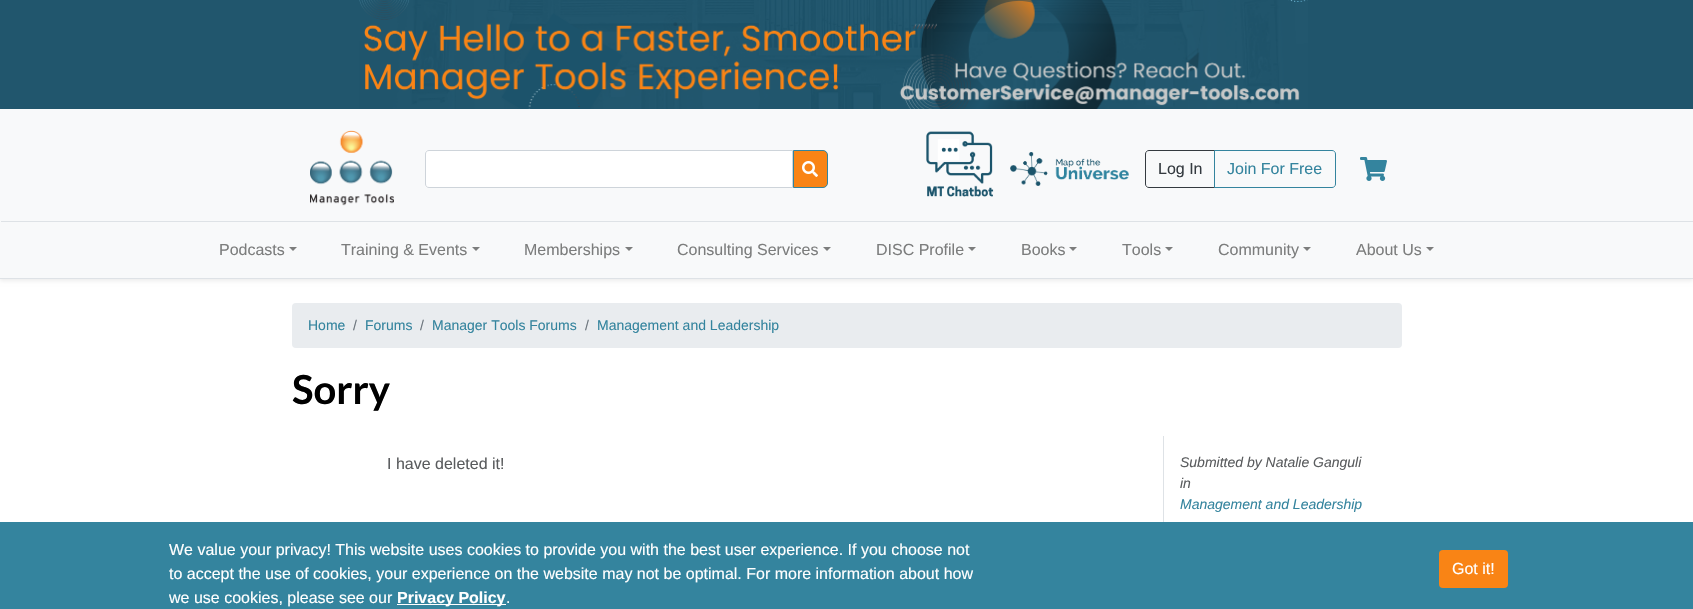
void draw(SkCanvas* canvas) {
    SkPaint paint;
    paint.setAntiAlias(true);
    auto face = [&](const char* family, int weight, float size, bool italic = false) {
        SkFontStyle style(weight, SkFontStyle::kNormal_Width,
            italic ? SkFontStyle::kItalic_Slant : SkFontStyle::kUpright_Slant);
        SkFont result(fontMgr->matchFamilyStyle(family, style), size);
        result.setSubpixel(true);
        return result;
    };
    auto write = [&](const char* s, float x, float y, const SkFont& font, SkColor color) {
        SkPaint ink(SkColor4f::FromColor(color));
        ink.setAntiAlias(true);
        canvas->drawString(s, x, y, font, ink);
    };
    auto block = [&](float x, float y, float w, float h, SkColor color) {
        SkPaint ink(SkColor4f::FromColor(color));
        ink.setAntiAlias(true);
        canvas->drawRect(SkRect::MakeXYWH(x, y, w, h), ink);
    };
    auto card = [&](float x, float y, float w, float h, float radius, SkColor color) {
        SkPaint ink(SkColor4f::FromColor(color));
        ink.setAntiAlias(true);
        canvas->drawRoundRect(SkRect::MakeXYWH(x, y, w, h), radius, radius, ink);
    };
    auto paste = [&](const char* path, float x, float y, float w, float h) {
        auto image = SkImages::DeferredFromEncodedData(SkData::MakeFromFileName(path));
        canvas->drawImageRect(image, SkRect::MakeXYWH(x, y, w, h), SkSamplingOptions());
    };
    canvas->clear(SK_ColorWHITE);
    {
        const SkColor colors[] = {SkColorSetRGB(33, 86, 109), SkColorSetRGB(32, 85, 108)};
        const float stops[] = {0.5f, 0.5f};
        const SkPoint ends[] = {{817, 238}, {876, -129}};
        paint.setShader(SkGradientShader::MakeLinear(ends, colors, stops, 2, SkTileMode::kClamp));
        paint.setAlpha(255);
    }
    canvas->drawRect(SkRect::MakeXYWH(0, 0, 1693, 109), paint);
    paste("pic1.png", 359, 0, 949, 109);
    paint.setShader(nullptr);
    paint.setColor(SkColorSetARGB(18, 0, 0, 0));
    paint.setMaskFilter(SkMaskFilter::MakeBlur(kNormal_SkBlurStyle, 2));
    canvas->drawRect(SkRect::MakeXYWH(0, 111, 1693, 170), paint);
    paint.setMaskFilter(nullptr);
    block(0, 109, 1693, 169, SkColorSetRGB(248, 249, 250));
    block(0, 278, 1693, 1, SkColorSetRGB(222, 226, 230));
    paste("pic2.png", 310, 130, 84, 76);
    paint.setColor(SK_ColorWHITE);
    canvas->drawPath(SkPathBuilder().moveTo(429, 150.5f).lineTo(792.5f, 150.5f).lineTo(792.5f, 187.5f).lineTo(429, 187.5f).cubicTo(427, 187.5f, 425.5f, 186, 425.5f, 184).lineTo(425.5f, 154).cubicTo(425.5f, 152, 427, 150.5f, 429, 150.5f).close().detach(), paint);
    paint.setStyle(SkPaint::kStroke_Style);
    paint.setStrokeWidth(1);
    paint.setColor(SkColorSetRGB(206, 212, 218));
    canvas->drawPath(SkPathBuilder().moveTo(429, 150.5f).lineTo(792.5f, 150.5f).lineTo(792.5f, 187.5f).lineTo(429, 187.5f).cubicTo(427, 187.5f, 425.5f, 186, 425.5f, 184).lineTo(425.5f, 154).cubicTo(425.5f, 152, 427, 150.5f, 429, 150.5f).close().detach(), paint);
    paint.setStyle(SkPaint::kFill_Style);
    paint.setColor(SkColorSetRGB(249, 132, 21));
    canvas->drawPath(SkPathBuilder().moveTo(793.5f, 150.5f).lineTo(823, 150.5f).cubicTo(825.5f, 150.5f, 827.5f, 152.5f, 827.5f, 155).lineTo(827.5f, 183).cubicTo(827.5f, 185.5f, 825.5f, 187.5f, 823, 187.5f).lineTo(793.5f, 187.5f).close().detach(), paint);
    paint.setStyle(SkPaint::kStroke_Style);
    paint.setColor(SkColorSetRGB(52, 132, 158));
    canvas->drawPath(SkPathBuilder().moveTo(793.5f, 150.5f).lineTo(823, 150.5f).cubicTo(825.5f, 150.5f, 827.5f, 152.5f, 827.5f, 155).lineTo(827.5f, 183).cubicTo(827.5f, 185.5f, 825.5f, 187.5f, 823, 187.5f).lineTo(793.5f, 187.5f).close().detach(), paint);
    paste("pic3.png", 802, 161, 16, 16);
    paste("pic4.png", 926, 131, 68, 66);
    paste("pic5.png", 1010, 152, 119, 34);
    paint.setColor(SkColorSetRGB(52, 58, 64));
    canvas->drawPath(SkPathBuilder().moveTo(1149, 150.5f).lineTo(1214.5f, 150.5f).lineTo(1214.5f, 187.5f).lineTo(1149, 187.5f).cubicTo(1147, 187.5f, 1145.5f, 186, 1145.5f, 184).lineTo(1145.5f, 154).cubicTo(1145.5f, 152, 1147, 150.5f, 1149, 150.5f).close().detach(), paint);
    auto kFont1 = face("Liberation Sans", 400, 16);
    write("Log In", 1158, 174, kFont1, SkColorSetRGB(52, 58, 64));
    paint.setColor(SkColorSetRGB(52, 132, 158));
    canvas->drawPath(SkPathBuilder().moveTo(1214.5f, 150.5f).lineTo(1332, 150.5f).cubicTo(1334, 150.5f, 1335.5f, 152, 1335.5f, 154).lineTo(1335.5f, 184).cubicTo(1335.5f, 186, 1334, 187.5f, 1332, 187.5f).lineTo(1214.5f, 187.5f).close().detach(), paint);
    write("Join For Free", 1227, 174, kFont1, SkColorSetRGB(52, 132, 158));
    paste("pic6.png", 1360, 157, 27, 24);
    block(1, 221, 1692, 1, SkColorSetRGB(222, 226, 230));
    write("Podcasts", 219, 255, kFont1, SkColorSetRGB(124, 125, 125));
    paint.setStyle(SkPaint::kFill_Style);
    paint.setColor(SkColorSetRGB(124, 125, 125));
    canvas->drawPath(SkPathBuilder().moveTo(289, 247).lineTo(297, 247).lineTo(293, 251).close().detach(), paint);
    write("Training & Events", 341, 255, kFont1, SkColorSetRGB(124, 125, 125));
    canvas->drawPath(SkPathBuilder().moveTo(472, 247).lineTo(480, 247).lineTo(476, 251).close().detach(), paint);
    write("Memberships", 524, 255, kFont1, SkColorSetRGB(124, 125, 125));
    canvas->drawPath(SkPathBuilder().moveTo(625, 247).lineTo(633, 247).lineTo(629, 251).close().detach(), paint);
    write("Consulting Services", 677, 255, kFont1, SkColorSetRGB(124, 125, 125));
    canvas->drawPath(SkPathBuilder().moveTo(823, 247).lineTo(831, 247).lineTo(827, 251).close().detach(), paint);
    write("DISC Profile", 876, 255, kFont1, SkColorSetRGB(124, 125, 125));
    canvas->drawPath(SkPathBuilder().moveTo(968, 247).lineTo(976, 247).lineTo(972, 251).close().detach(), paint);
    write("Books", 1021, 255, kFont1, SkColorSetRGB(124, 125, 125));
    canvas->drawPath(SkPathBuilder().moveTo(1069, 247).lineTo(1077, 247).lineTo(1073, 251).close().detach(), paint);
    write("Tools", 1122, 255, kFont1, SkColorSetRGB(124, 125, 125));
    canvas->drawPath(SkPathBuilder().moveTo(1165, 247).lineTo(1173, 247).lineTo(1169, 251).close().detach(), paint);
    write("Community", 1218, 255, kFont1, SkColorSetRGB(124, 125, 125));
    canvas->drawPath(SkPathBuilder().moveTo(1303, 247).lineTo(1311, 247).lineTo(1307, 251).close().detach(), paint);
    write("About Us", 1356, 255, kFont1, SkColorSetRGB(124, 125, 125));
    canvas->drawPath(SkPathBuilder().moveTo(1426, 247).lineTo(1434, 247).lineTo(1430, 251).close().detach(), paint);
    card(292, 303, 1110, 45, 4, SkColorSetRGB(233, 236, 239));
    auto kFont2 = face("Liberation Sans", 400, 14);
    write("Home", 308, 330, kFont2, SkColorSetRGB(52, 132, 158));
    write("/", 353, 330, kFont2, SkColorSetRGB(108, 117, 125));
    write("Forums", 365, 330, kFont2, SkColorSetRGB(52, 132, 158));
    write("/", 420, 330, kFont2, SkColorSetRGB(108, 117, 125));
    write("Manager Tools Forums", 432, 330, kFont2, SkColorSetRGB(52, 132, 158));
    write("/", 585, 330, kFont2, SkColorSetRGB(108, 117, 125));
    write("Management and Leadership", 597, 330, kFont2, SkColorSetRGB(52, 132, 158));
    auto kFont3 = face("Lato", 700, 40);
    write("Sorry", 292, 404, kFont3, SK_ColorBLACK);
    write("I have deleted it!", 387, 469, kFont1, SkColorSetRGB(90, 92, 94));
    block(1163, 436, 1, 86, SkColorSetRGB(222, 226, 230));
    auto kFont4 = face("Liberation Sans", 400, 14, true);
    write("Submitted by Natalie Ganguli", 1180, 467, kFont4, SkColorSetRGB(90, 92, 94));
    write("in", 1180, 488, kFont4, SkColorSetRGB(90, 92, 94));
    write("Management and Leadership", 1180, 509, kFont4, SkColorSetRGB(52, 132, 158));
    block(0, 522, 1693, 87, SkColorSetRGB(52, 132, 158));
    write("We value your privacy! This website uses cookies to provide you with the best user experience. If you choose not", 169, 555, kFont1, SK_ColorWHITE);
    write("to accept the use of cookies, your experience on the website may not be optimal. For more information about how", 169, 579, kFont1, SK_ColorWHITE);
    write("we use cookies, please see our", 169, 603, kFont1, SK_ColorWHITE);
    block(397, 604, 109, 1, SK_ColorWHITE);
    auto kFont5 = face("Liberation Sans", 700, 16);
    write("Privacy Policy", 397, 603, kFont5, SK_ColorWHITE);
    write(".", 506, 603, kFont1, SK_ColorWHITE);
    card(1439, 550, 69, 38, 4, SkColorSetRGB(249, 132, 21));
    write("Got it!", 1452, 574, kFont1, SK_ColorWHITE);
}
